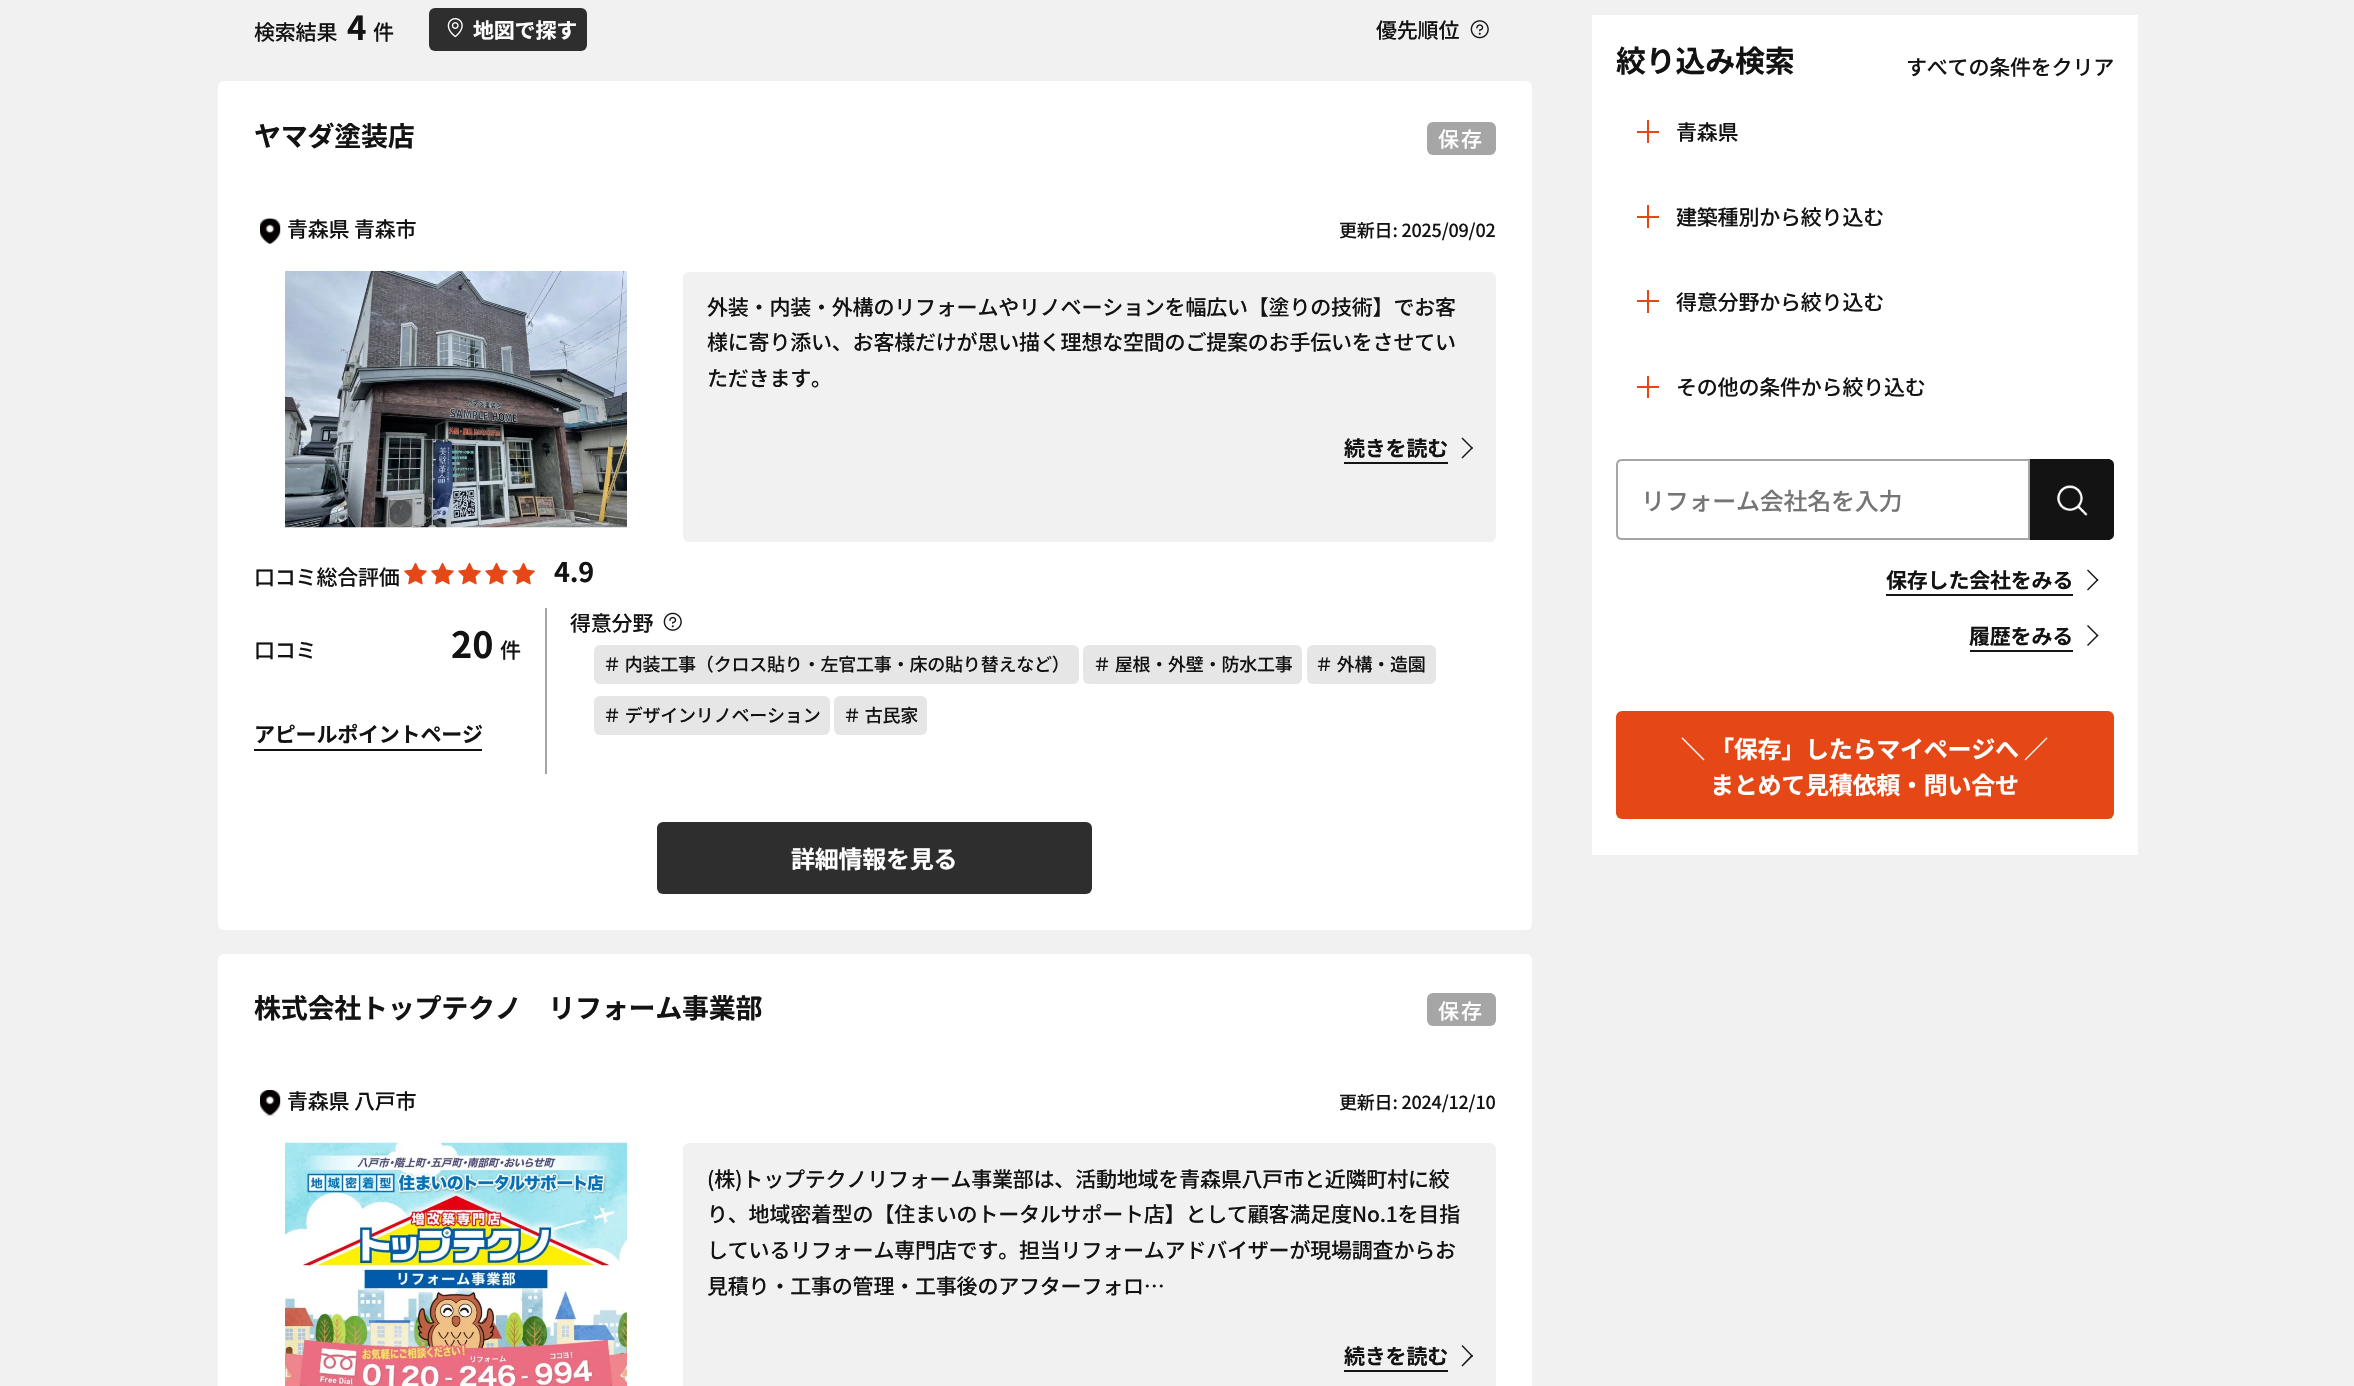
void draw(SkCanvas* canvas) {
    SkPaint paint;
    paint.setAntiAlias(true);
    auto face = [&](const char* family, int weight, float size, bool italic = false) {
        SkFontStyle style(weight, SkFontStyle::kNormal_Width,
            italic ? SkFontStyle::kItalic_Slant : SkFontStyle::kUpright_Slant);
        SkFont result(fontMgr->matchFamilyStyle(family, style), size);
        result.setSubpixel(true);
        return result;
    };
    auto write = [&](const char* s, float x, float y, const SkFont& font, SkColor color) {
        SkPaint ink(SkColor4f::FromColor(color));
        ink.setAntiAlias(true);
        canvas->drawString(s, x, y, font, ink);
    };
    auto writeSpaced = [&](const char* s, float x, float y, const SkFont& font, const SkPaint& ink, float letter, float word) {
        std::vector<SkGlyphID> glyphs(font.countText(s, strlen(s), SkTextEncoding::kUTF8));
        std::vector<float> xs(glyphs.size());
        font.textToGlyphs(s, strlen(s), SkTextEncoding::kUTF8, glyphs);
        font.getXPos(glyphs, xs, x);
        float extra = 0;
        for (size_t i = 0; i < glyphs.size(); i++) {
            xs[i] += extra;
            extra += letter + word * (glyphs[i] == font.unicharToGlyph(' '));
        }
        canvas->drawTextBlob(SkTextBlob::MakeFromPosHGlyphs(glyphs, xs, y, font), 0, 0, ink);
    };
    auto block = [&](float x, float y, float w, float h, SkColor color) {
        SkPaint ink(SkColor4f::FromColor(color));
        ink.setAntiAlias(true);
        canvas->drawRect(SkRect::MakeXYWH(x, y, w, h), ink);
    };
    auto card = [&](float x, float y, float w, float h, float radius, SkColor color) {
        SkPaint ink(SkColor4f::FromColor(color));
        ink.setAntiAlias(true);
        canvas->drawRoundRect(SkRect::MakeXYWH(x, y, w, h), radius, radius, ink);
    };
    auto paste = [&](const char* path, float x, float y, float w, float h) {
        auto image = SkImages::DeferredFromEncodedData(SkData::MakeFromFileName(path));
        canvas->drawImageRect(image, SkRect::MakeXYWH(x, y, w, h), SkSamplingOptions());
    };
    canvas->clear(SkColorSetRGB(241, 241, 241));
    auto kFont1 = face("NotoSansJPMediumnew", 500, 21);
    paint.setColor(SkColorSetRGB(19, 19, 19));
    writeSpaced("検索結果", 254, 40, kFont1, paint, -0.2f, 0);
    auto kFont2 = face("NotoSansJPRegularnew", 400, 33);
    write("4", 347, 40, kFont2, SkColorSetRGB(19, 19, 19));
    writeSpaced("件", 373, 40, kFont1, paint, -0.2f, 0);
    card(429, 8, 158, 43, 6, SkColorSetRGB(46, 46, 46));
    paste("pic1.png", 447, 18, 16, 20);
    auto kFont3 = face("NotoSansJPRegularnew", 400, 21);
    paint.setColor(SK_ColorWHITE);
    writeSpaced("地図で探す", 473, 38, kFont3, paint, -0.2f, 0);
    paint.setColor(SkColorSetRGB(19, 19, 19));
    writeSpaced("優先順位", 1376, 38, kFont1, paint, -0.2f, 0);
    paste("pic2.png", 1470, 20, 19, 19);
    card(218, 81, 1314, 849, 6, SK_ColorWHITE);
    auto kFont4 = face("NotoSansJPRegularnew", 400, 27);
    writeSpaced("ヤマダ塗装店", 254, 146, kFont4, paint, -0.25f, 0);
    card(1427, 122, 69, 33, 6, SkColorSetRGB(166, 166, 166));
    paint.setColor(SK_ColorWHITE);
    writeSpaced("保存", 1438, 147, kFont1, paint, 2, 0);
    card(683, 272, 813, 270, 6, SkColorSetRGB(241, 241, 241));
    paint.setColor(SkColorSetRGB(19, 19, 19));
    writeSpaced("外装・内装・外構のリフォームやリノベーションを幅広い【塗りの技術】でお客", 707, 315, kFont1, paint, -0.2f, 0);
    writeSpaced("様に寄り添い、お客様だけが思い描く理想な空間のご提案のお手伝いをさせてい", 707, 350, kFont1, paint, -0.2f, 0);
    writeSpaced("ただきます。", 707, 386, kFont1, paint, -0.2f, 0);
    writeSpaced("続きを読む", 1344, 456, kFont3, paint, -0.2f, 0);
    block(1344, 462, 104, 2, SkColorSetRGB(21, 21, 21));
    paint.setColor(SkColorSetRGB(21, 21, 21));
    canvas->drawPath(SkPathBuilder().moveTo(1462.5f, 437.5f).lineTo(1473, 448).lineTo(1472, 449).lineTo(1461.5f, 438.5f).close().detach(), paint);
    canvas->drawPath(SkPathBuilder().moveTo(1472, 447).lineTo(1473, 448).lineTo(1462.5f, 458.5f).lineTo(1461.5f, 457.5f).close().detach(), paint);
    paint.setColor(SkColorSetRGB(19, 19, 19));
    writeSpaced("口コミ総合評価", 254, 585, kFont1, paint, -0.2f, 0);
    paste("pic3.png", 404, 563, 23, 22);
    paste("pic3.png", 431, 563, 23, 22);
    paste("pic3.png", 458, 563, 23, 22);
    paste("pic3.png", 485, 563, 23, 22);
    paste("pic3.png", 512, 563, 23, 22);
    writeSpaced("4.9", 554, 582, kFont4, paint, -0.25f, 0);
    writeSpaced("口コミ", 254, 658, kFont1, paint, -0.2f, 0);
    auto kFont5 = face("NotoSansJPRegularnew", 400, 36);
    write("20", 451, 658, kFont5, SkColorSetRGB(19, 19, 19));
    writeSpaced("件", 500, 658, kFont1, paint, -0.2f, 0);
    writeSpaced("アピールポイントページ", 254, 742, kFont3, paint, -0.2f, 0);
    block(254, 749, 228, 2, SkColorSetRGB(17, 17, 17));
    block(545, 608, 2, 166, SkColorSetRGB(166, 166, 166));
    writeSpaced("得意分野", 570, 631, kFont1, paint, -0.2f, 0);
    paste("pic4.png", 663, 612, 19, 19);
    card(594, 645, 485, 39, 6, SkColorSetRGB(230, 230, 230));
    auto kFont6 = face("NotoSansJPMediumnew", 500, 18);
    writeSpaced("＃ 内装工事（クロス貼り・左官工事・床の貼り替えなど）", 603, 671, kFont6, paint, -0.2f, 0);
    card(1083, 645, 219, 39, 6, SkColorSetRGB(230, 230, 230));
    writeSpaced("＃ 屋根・外壁・防水工事", 1093, 671, kFont6, paint, -0.2f, 0);
    card(1307, 645, 129, 39, 6, SkColorSetRGB(230, 230, 230));
    writeSpaced("＃ 外構・造園", 1315, 671, kFont6, paint, -0.2f, 0);
    card(594, 696, 236, 39, 6, SkColorSetRGB(230, 230, 230));
    writeSpaced("＃ デザインリノベーション", 603, 722, kFont6, paint, -0.2f, 0);
    card(834, 696, 93, 39, 6, SkColorSetRGB(230, 230, 230));
    writeSpaced("＃ 古民家", 843, 722, kFont6, paint, -0.2f, 0);
    card(657, 822, 435, 72, 6, SkColorSetRGB(46, 46, 46));
    auto kFont7 = face("NotoSansJPRegularnew", 400, 24);
    paint.setColor(SK_ColorWHITE);
    writeSpaced("詳細情報を見る", 791, 868, kFont7, paint, -0.25f, 0);
    paste("pic5.png", 285, 271, 342, 257);
    paste("pic6.png", 260, 218, 21, 26);
    paint.setColor(SkColorSetRGB(19, 19, 19));
    writeSpaced("青森県 青森市", 287, 237, kFont1, paint, -0.2f, 0);
    writeSpaced("更新日: 2025/09/02", 1339, 237, kFont6, paint, -0.2f, 0);
    card(218, 954, 1314, 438, 6, SK_ColorWHITE);
    writeSpaced("株式会社トップテクノ　リフォーム事業部", 254, 1018, kFont4, paint, -0.25f, 0);
    paste("pic7.png", 285, 1142, 342, 244);
    card(1427, 993, 69, 33, 6, SkColorSetRGB(166, 166, 166));
    paint.setColor(SK_ColorWHITE);
    writeSpaced("保存", 1438, 1019, kFont1, paint, 2, 0);
    card(683, 1143, 813, 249, 6, SkColorSetRGB(241, 241, 241));
    paint.setColor(SkColorSetRGB(19, 19, 19));
    writeSpaced("(株)トップテクノリフォーム事業部は、活動地域を青森県八戸市と近隣町村に絞", 707, 1187, kFont1, paint, -0.2f, 0);
    writeSpaced("り、地域密着型の【住まいのトータルサポート店】として顧客満足度No.1を目指", 707, 1222, kFont1, paint, -0.2f, 0);
    writeSpaced("しているリフォーム専門店です。担当リフォームアドバイザーが現場調査からお", 707, 1258, kFont1, paint, -0.2f, 0);
    writeSpaced("見積り・工事の管理・工事後のアフターフォロ…", 707, 1294, kFont1, paint, -0.2f, 0);
    writeSpaced("続きを読む", 1344, 1364, kFont3, paint, -0.2f, 0);
    block(1344, 1370, 104, 2, SkColorSetRGB(21, 21, 21));
    paint.setColor(SkColorSetRGB(21, 21, 21));
    canvas->drawPath(SkPathBuilder().moveTo(1462.5f, 1345).lineTo(1473, 1356).lineTo(1472, 1357).lineTo(1461.5f, 1346).close().detach(), paint);
    canvas->drawPath(SkPathBuilder().moveTo(1472, 1354.5f).lineTo(1473, 1356).lineTo(1462.5f, 1366.5f).lineTo(1461.5f, 1365.5f).close().detach(), paint);
    paste("pic8.png", 260, 1090, 21, 26);
    paint.setColor(SkColorSetRGB(19, 19, 19));
    writeSpaced("青森県 八戸市", 287, 1109, kFont1, paint, -0.2f, 0);
    writeSpaced("更新日: 2024/12/10", 1339, 1109, kFont6, paint, -0.2f, 0);
    block(1592, 15, 546, 840, SK_ColorWHITE);
    auto kFont8 = face("NotoSansJPRegularnew", 400, 30);
    writeSpaced("絞り込み検索", 1616, 72, kFont8, paint, -0.25f, 0);
    writeSpaced("すべての条件をクリア", 1906, 75, kFont1, paint, -0.2f, 0);
    block(1637, 131, 22, 2, SkColorSetRGB(229, 72, 22));
    block(1647, 120, 2, 23, SkColorSetRGB(229, 72, 22));
    writeSpaced("青森県", 1676, 140, kFont1, paint, -0.2f, 0);
    block(1637, 216, 22, 2, SkColorSetRGB(229, 72, 22));
    block(1647, 205, 2, 23, SkColorSetRGB(229, 72, 22));
    writeSpaced("建築種別から絞り込む", 1676, 225, kFont1, paint, -0.2f, 0);
    block(1637, 300, 22, 2, SkColorSetRGB(229, 72, 22));
    block(1647, 290, 2, 23, SkColorSetRGB(229, 72, 22));
    writeSpaced("得意分野から絞り込む", 1676, 310, kFont1, paint, -0.2f, 0);
    block(1637, 386, 22, 2, SkColorSetRGB(229, 72, 22));
    block(1647, 376, 2, 22, SkColorSetRGB(229, 72, 22));
    writeSpaced("その他の条件から絞り込む", 1676, 395, kFont1, paint, -0.2f, 0);
    paint.setStyle(SkPaint::kStroke_Style);
    paint.setStrokeWidth(2);
    paint.setColor(SkColorSetRGB(166, 166, 166));
    canvas->drawPath(SkPathBuilder().moveTo(1622, 460).lineTo(2029, 460).lineTo(2029, 539).lineTo(1622, 539).cubicTo(1619, 539, 1617, 537, 1617, 534).lineTo(1617, 465).cubicTo(1617, 462, 1619, 460, 1622, 460).close().detach(), paint);
    auto kFont9 = face("NotoSansJPMediumnew", 500, 24);
    paint.setStyle(SkPaint::kFill_Style);
    paint.setColor(SkColorSetRGB(117, 117, 117));
    writeSpaced("リフォーム会社名を入力", 1641, 510, kFont9, paint, -0.25f, 0);
    paint.setColor(SkColorSetRGB(19, 19, 19));
    canvas->drawPath(SkPathBuilder().moveTo(2030, 459).lineTo(2108, 459).cubicTo(2111.5f, 459, 2114, 461.5f, 2114, 465).lineTo(2114, 534).cubicTo(2114, 537.5f, 2111.5f, 540, 2108, 540).lineTo(2030, 540).close().detach(), paint);
    paste("pic9.png", 2057, 485, 31, 31);
    writeSpaced("保存した会社をみる", 1886, 588, kFont3, paint, -0.2f, 0);
    block(1886, 594, 187, 2, SkColorSetRGB(21, 21, 21));
    paint.setColor(SkColorSetRGB(21, 21, 21));
    canvas->drawPath(SkPathBuilder().moveTo(2088, 569.5f).lineTo(2098.5f, 580).lineTo(2097.5f, 581).lineTo(2087, 570.5f).close().detach(), paint);
    canvas->drawPath(SkPathBuilder().moveTo(2097.5f, 579).lineTo(2098.5f, 580).lineTo(2088, 590.5f).lineTo(2087, 589.5f).close().detach(), paint);
    paint.setColor(SkColorSetRGB(19, 19, 19));
    writeSpaced("履歴をみる", 1969, 644, kFont3, paint, -0.2f, 0);
    block(1970, 650, 103, 2, SkColorSetRGB(21, 21, 21));
    paint.setColor(SkColorSetRGB(21, 21, 21));
    canvas->drawPath(SkPathBuilder().moveTo(2088, 625).lineTo(2098.5f, 635.5f).lineTo(2097.5f, 636.5f).lineTo(2087, 626).close().detach(), paint);
    canvas->drawPath(SkPathBuilder().moveTo(2097.5f, 634.5f).lineTo(2098.5f, 635.5f).lineTo(2088, 646).lineTo(2087, 645).close().detach(), paint);
    card(1616, 711, 498, 108, 6, SkColorSetRGB(229, 72, 22));
    paint.setColor(SK_ColorWHITE);
    writeSpaced("＼ 「保存」したらマイページへ ／", 1681, 758, kFont7, paint, -0.25f, 0);
    writeSpaced("まとめて見積依頼・問い合せ", 1710, 794, kFont7, paint, -0.25f, 0);
}
